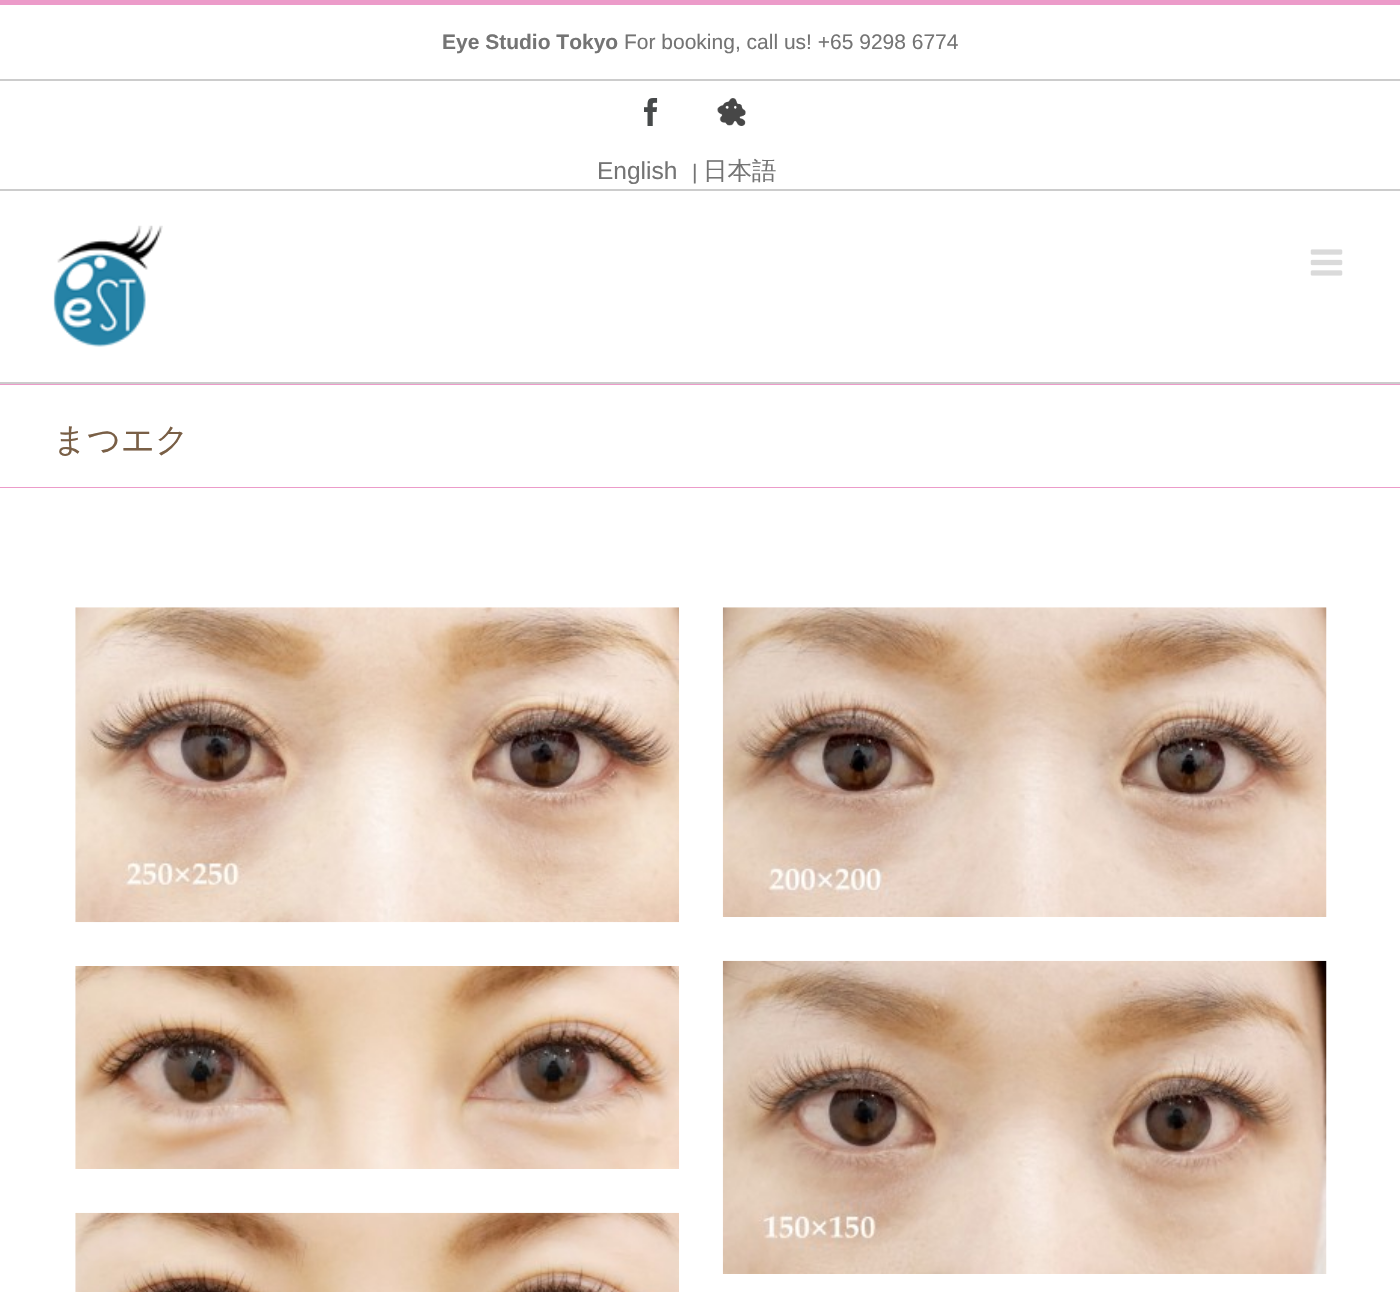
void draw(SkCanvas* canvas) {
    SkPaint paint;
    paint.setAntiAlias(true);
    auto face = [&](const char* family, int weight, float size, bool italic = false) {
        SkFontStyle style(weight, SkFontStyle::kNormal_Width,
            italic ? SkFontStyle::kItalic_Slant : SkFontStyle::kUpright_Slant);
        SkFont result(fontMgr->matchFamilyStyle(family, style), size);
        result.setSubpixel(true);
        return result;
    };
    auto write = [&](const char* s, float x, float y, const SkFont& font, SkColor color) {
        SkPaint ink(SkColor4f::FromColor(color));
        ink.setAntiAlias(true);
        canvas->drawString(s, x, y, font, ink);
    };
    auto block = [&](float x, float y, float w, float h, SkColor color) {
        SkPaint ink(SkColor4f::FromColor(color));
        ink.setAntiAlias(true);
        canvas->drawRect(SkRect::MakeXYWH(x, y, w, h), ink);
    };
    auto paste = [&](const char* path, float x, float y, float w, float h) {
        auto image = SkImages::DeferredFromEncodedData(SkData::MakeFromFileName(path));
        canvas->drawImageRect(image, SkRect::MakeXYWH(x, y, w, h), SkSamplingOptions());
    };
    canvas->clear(SK_ColorWHITE);
    block(0, 0, 1400, 5, SkColorSetRGB(236, 155, 201));
    block(0, 189, 1400, 2, SkColorSetRGB(204, 204, 204));
    block(0, 79, 1400, 2, SkColorSetRGB(204, 204, 204));
    auto kFont1 = face("Liberation Sans", 700, 21);
    write("Eye Studio Tokyo", 442, 49, kFont1, SkColorSetRGB(116, 116, 116));
    auto kFont2 = face("Liberation Sans", 400, 21);
    write("For booking, call us! +65 9298 6774", 624, 49, kFont2, SkColorSetRGB(116, 116, 116));
    paste("pic1.png", 644, 98, 14, 28);
    paste("pic2.png", 717, 98, 29, 28);
    auto kFont3 = face("Liberation Sans", 400, 24.5f);
    write("English", 597, 179, kFont3, SkColorSetRGB(116, 116, 116));
    write("|", 692, 179, kFont2, SkColorSetRGB(116, 116, 116));
    auto kFont4 = face("WenQuanYi Zen Hei", 500, 24.5f);
    write("日本語", 703, 179, kFont4, SkColorSetRGB(116, 116, 116));
    block(0, 382, 1400, 2, SkColorSetRGB(204, 204, 204));
    paste("pic3.png", 53, 225, 110, 122);
    paste("pic4.png", 1310, 249, 33, 27);
    block(0, 384, 1400, 1, SkColorSetRGB(236, 155, 201));
    block(0, 487, 1400, 1, SkColorSetRGB(236, 155, 201));
    auto kFont5 = face("WenQuanYi Zen Hei", 500, 33.25f);
    write("まつエク", 53, 451, kFont5, SkColorSetRGB(121, 95, 70));
    paste("pic5.png", 75, 607, 604, 316);
    paste("pic6.png", 722, 607, 605, 310);
    paste("pic7.png", 75, 966, 604, 203);
    paste("pic8.png", 722, 960, 605, 314);
    paste("pic9.png", 75, 1212, 604, 80);
}
